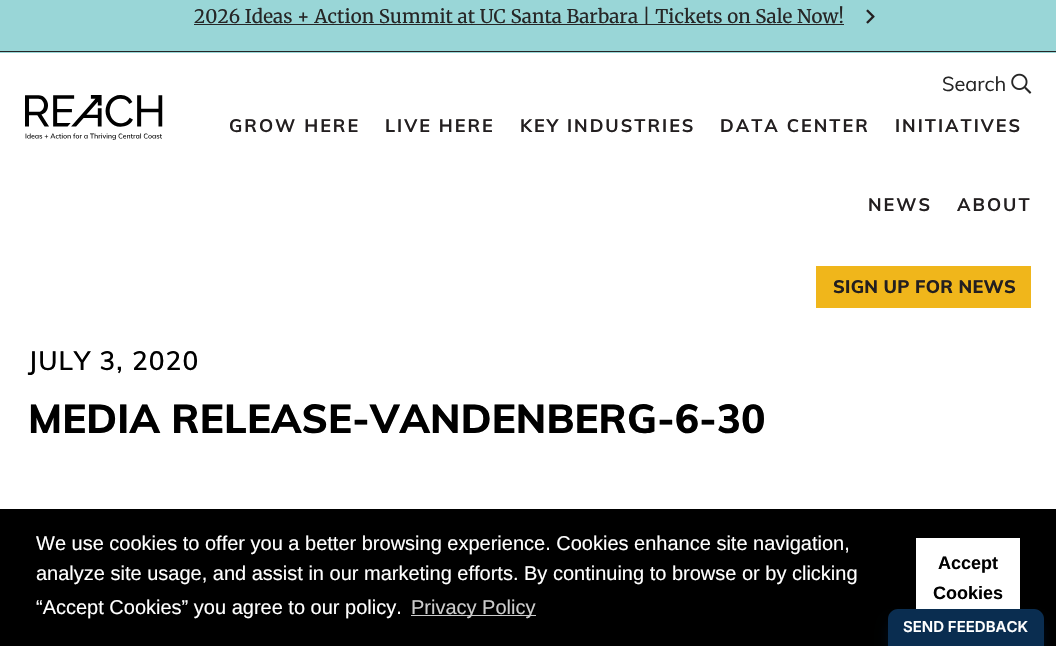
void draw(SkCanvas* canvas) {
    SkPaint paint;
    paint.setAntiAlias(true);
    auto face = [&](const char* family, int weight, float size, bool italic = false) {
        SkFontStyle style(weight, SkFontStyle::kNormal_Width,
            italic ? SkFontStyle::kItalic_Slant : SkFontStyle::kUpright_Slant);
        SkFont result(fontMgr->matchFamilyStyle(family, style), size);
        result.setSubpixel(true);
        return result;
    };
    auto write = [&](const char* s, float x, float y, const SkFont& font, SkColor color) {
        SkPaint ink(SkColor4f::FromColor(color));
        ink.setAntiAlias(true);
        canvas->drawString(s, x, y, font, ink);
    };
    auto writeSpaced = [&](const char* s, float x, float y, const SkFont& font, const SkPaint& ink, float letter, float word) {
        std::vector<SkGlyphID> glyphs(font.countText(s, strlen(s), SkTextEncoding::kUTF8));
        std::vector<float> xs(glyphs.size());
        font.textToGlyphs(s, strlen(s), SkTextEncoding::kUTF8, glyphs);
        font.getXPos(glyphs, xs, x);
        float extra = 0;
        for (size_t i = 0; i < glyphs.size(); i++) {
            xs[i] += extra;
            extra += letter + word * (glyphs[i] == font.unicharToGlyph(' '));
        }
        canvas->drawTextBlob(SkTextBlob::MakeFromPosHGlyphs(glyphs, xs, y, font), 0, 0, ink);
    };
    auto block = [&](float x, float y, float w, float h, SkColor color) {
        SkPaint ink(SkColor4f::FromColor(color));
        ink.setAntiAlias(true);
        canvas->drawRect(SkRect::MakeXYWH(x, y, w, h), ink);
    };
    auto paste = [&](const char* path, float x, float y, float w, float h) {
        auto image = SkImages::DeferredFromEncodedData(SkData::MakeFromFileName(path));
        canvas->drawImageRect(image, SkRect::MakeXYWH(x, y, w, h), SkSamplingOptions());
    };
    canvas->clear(SK_ColorWHITE);
    block(0, 0, 1056, 53, SkColorSetRGB(153, 214, 215));
    block(0, 51, 1056, 1, SkColorSetRGB(38, 38, 38));
    block(194, 24, 650, 1, SkColorSetRGB(38, 38, 38));
    auto kFont1 = face("Merriweather", 400, 18.75f);
    paint.setColor(SkColorSetRGB(38, 38, 38));
    writeSpaced("2026 Ideas + Action Summit at UC Santa Barbara | Tickets on Sale Now!", 194, 23, kFont1, paint, 0.1f, 0);
    paste("pic1.png", 866, 9, 9, 15);
    auto kFont2 = face("Muli", 400, 20);
    write("Search", 942, 91, kFont2, SkColorSetRGB(38, 38, 38));
    paste("pic2.png", 1011, 73, 21, 21);
    paste("pic3.png", 25, 95, 138, 45);
    auto kFont3 = face("Muli", 700, 18);
    paint.setColor(SkColorSetRGB(35, 31, 32));
    writeSpaced("GROW HERE", 229, 132, kFont3, paint, 2, 0);
    writeSpaced("LIVE HERE", 385, 132, kFont3, paint, 2, 0);
    writeSpaced("KEY INDUSTRIES", 520, 132, kFont3, paint, 2, 0);
    writeSpaced("DATA CENTER", 720, 132, kFont3, paint, 2, 0);
    writeSpaced("INITIATIVES", 895, 132, kFont3, paint, 2, 0);
    writeSpaced("NEWS", 868, 211, kFont3, paint, 2, 0);
    writeSpaced("ABOUT", 957, 211, kFont3, paint, 2, 0);
    block(816, 266, 215, 42, SkColorSetRGB(240, 182, 27));
    auto kFont4 = face("Muli", 800, 18);
    writeSpaced("SIGN UP FOR NEWS", 833, 293, kFont4, paint, 0.25f, 0);
    auto kFont5 = face("Muli", 600, 26.25f);
    paint.setColor(SK_ColorBLACK);
    writeSpaced("JULY 3, 2020", 28, 370, kFont5, paint, 1.1f, 0);
    auto kFont6 = face("Muli", 800, 40.1f);
    writeSpaced("MEDIA RELEASE-VANDENBERG-6-30", 28, 433, kFont6, paint, 0.1f, 0);
    block(0, 509, 1056, 137, SK_ColorBLACK);
    auto kFont7 = face("Liberation Sans", 400, 20);
    write("We use cookies to offer you a better browsing experience. Cookies enhance site navigation,", 36, 550, kFont7, SK_ColorWHITE);
    write("analyze site usage, and assist in our marketing efforts. By continuing to browse or by clicking", 36, 580, kFont7, SK_ColorWHITE);
    write("“Accept Cookies” you agree to our policy.", 36, 614, kFont7, SK_ColorWHITE);
    block(411, 615, 125, 1, SkColorSetRGB(204, 204, 204));
    write("Privacy Policy", 411, 614, kFont7, SkColorSetRGB(204, 204, 204));
    block(916, 538, 104, 71, SK_ColorWHITE);
    auto kFont8 = face("Liberation Sans", 700, 18);
    write("Accept", 938, 569, kFont8, SK_ColorBLACK);
    write("Cookies", 933, 599, kFont8, SK_ColorBLACK);
    paint.setColor(SkColorSetARGB(51, 0, 57, 128));
    paint.setMaskFilter(SkMaskFilter::MakeBlur(kNormal_SkBlurStyle, 6));
    canvas->drawRoundRect(SkRect::MakeXYWH(888, 621, 156, 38), 10, 10, paint);
    paint.setMaskFilter(nullptr);
    paint.setColor(SkColorSetRGB(10, 45, 80));
    canvas->drawPath(SkPathBuilder().moveTo(898, 609).lineTo(1034, 609).cubicTo(1039.5f, 609, 1044, 613.5f, 1044, 619).lineTo(1044, 646).lineTo(888, 646).lineTo(888, 619).cubicTo(888, 613.5f, 892.5f, 609, 898, 609).close().detach(), paint);
    auto kFont9 = face("Inter", 600, 15);
    write("SEND FEEDBACK", 903, 632, kFont9, SK_ColorWHITE);
}
